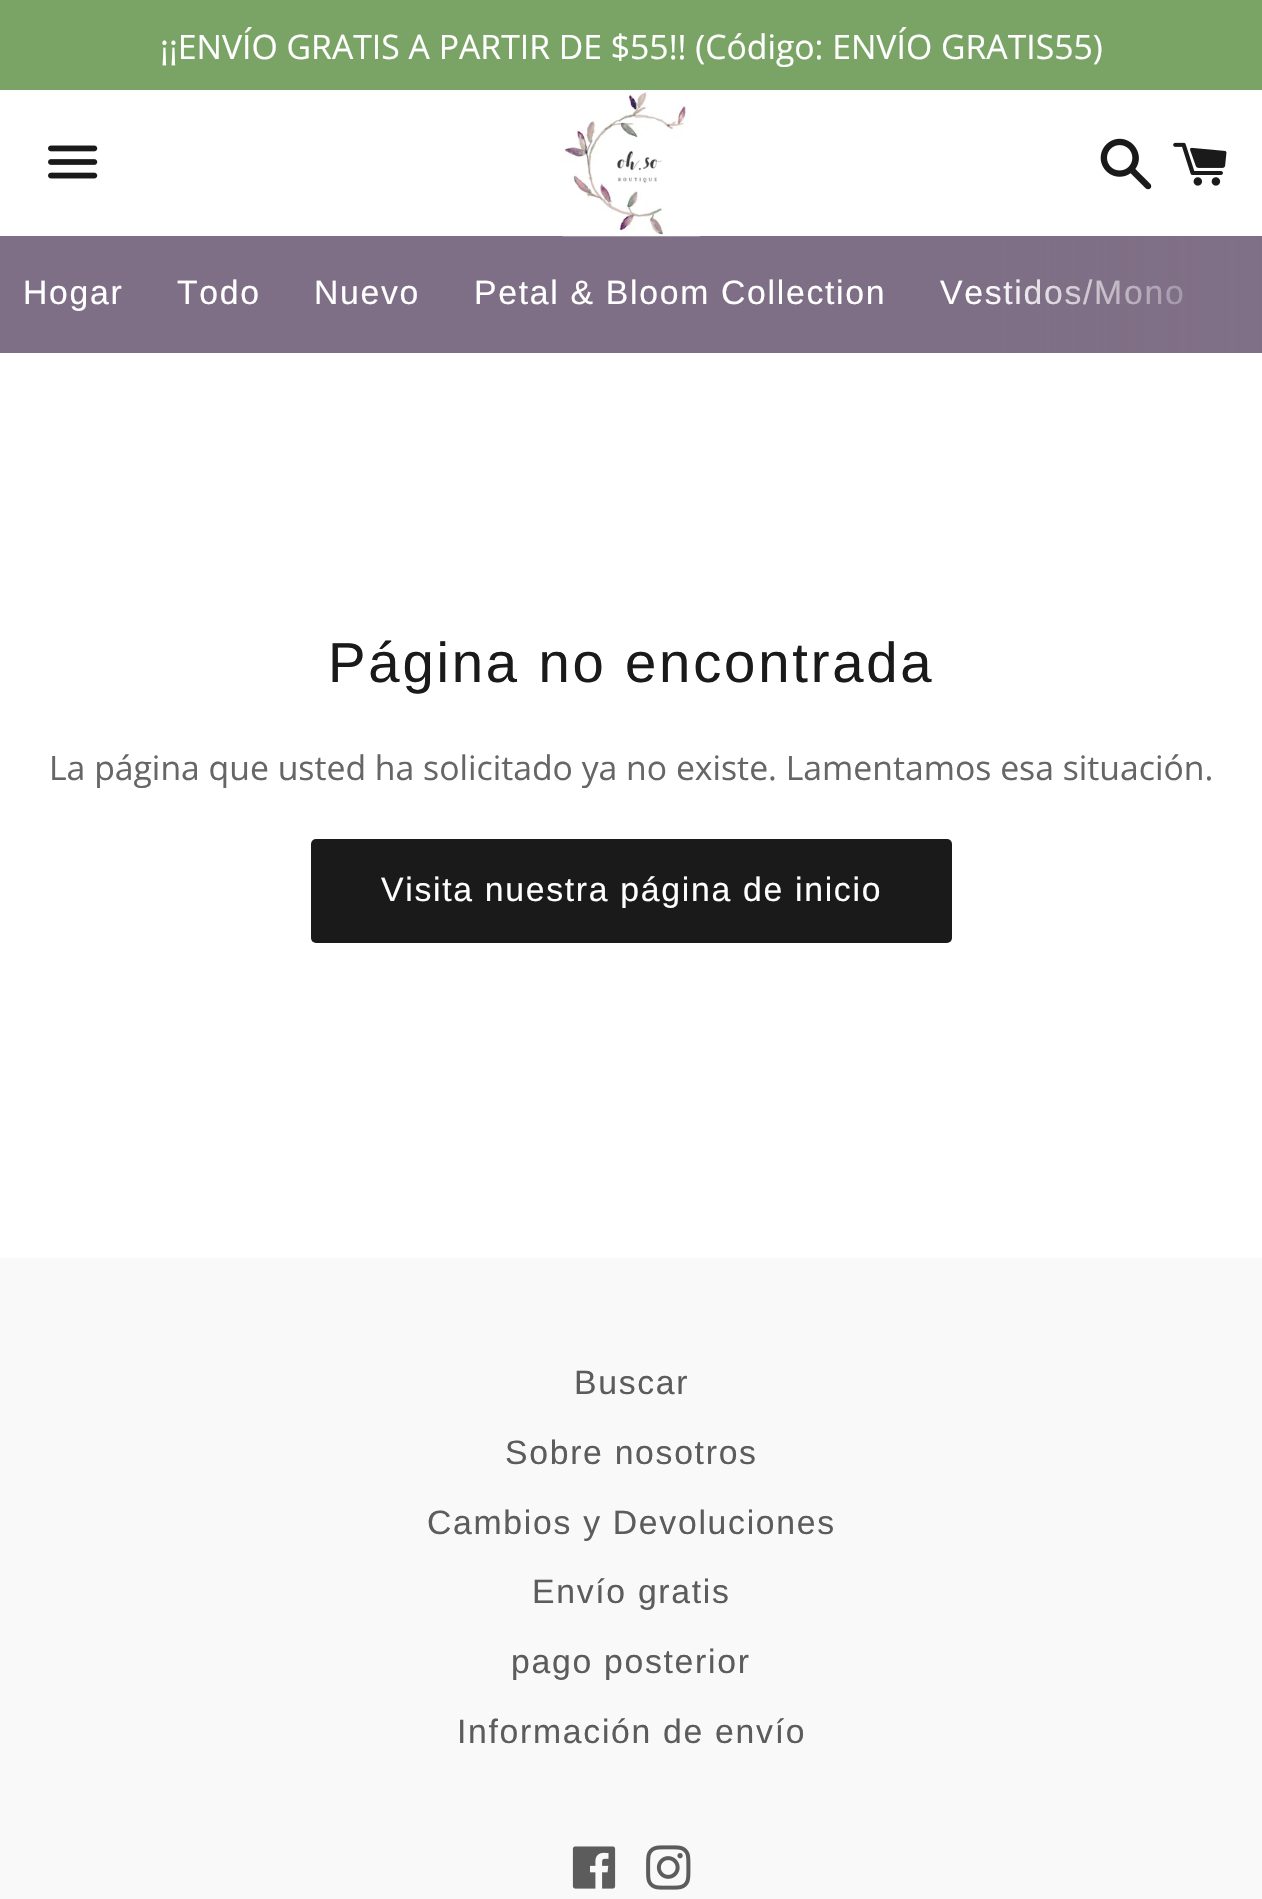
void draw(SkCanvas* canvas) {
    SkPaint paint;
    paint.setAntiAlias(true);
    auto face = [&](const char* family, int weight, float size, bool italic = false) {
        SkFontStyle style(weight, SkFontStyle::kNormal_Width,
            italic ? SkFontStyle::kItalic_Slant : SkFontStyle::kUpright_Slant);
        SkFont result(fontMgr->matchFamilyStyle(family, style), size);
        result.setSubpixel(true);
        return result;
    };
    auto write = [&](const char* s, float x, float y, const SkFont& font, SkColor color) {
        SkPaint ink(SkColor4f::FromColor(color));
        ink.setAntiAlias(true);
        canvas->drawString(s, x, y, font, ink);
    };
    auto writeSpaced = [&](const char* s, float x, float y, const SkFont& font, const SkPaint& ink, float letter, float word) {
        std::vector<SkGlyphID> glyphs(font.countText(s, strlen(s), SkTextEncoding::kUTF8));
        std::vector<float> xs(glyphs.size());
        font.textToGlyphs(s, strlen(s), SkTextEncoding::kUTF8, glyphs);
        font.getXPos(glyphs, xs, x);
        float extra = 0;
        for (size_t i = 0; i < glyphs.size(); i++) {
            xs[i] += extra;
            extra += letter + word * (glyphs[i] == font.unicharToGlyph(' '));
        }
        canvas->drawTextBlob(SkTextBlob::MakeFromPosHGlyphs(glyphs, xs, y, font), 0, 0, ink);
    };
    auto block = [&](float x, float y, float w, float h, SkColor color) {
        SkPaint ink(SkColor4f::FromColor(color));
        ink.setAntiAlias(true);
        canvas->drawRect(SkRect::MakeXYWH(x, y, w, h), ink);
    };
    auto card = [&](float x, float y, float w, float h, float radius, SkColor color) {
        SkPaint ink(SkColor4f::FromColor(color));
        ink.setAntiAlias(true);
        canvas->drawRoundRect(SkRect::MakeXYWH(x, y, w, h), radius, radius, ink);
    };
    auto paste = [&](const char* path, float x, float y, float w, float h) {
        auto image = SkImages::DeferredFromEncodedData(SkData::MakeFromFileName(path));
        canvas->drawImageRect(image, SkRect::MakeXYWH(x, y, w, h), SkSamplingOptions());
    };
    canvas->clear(SK_ColorWHITE);
    block(0, 0, 1262, 90, SkColorSetRGB(122, 164, 101));
    auto kFont1 = face("Open Sans", 400, 33.75f);
    write("¡¡ENVÍO GRATIS A PARTIR DE $55!! (Código: ENVÍO GRATIS55)", 160, 59, kFont1, SK_ColorWHITE);
    paste("pic1.png", 48, 145, 50, 34);
    block(0, 236, 1260, 117, SkColorSetRGB(127, 111, 134));
    paste("pic2.png", 562, 90, 138, 147);
    paste("pic3.png", 1100, 138, 52, 52);
    paste("pic4.png", 1173, 142, 54, 44);
    auto kFont2 = face("Liberation Sans", 400, 33.75f);
    paint.setColor(SK_ColorWHITE);
    writeSpaced("Vestidos/Mono", 940, 304, kFont2, paint, 1.7f, 0);
    {
        const SkColor colors[] = {SkColorSetARGB(0, 127, 111, 134), SkColorSetRGB(127, 111, 134)};
        const float stops[] = {0, 1};
        const SkPoint ends[] = {{981, 295}, {1262, 295}};
        paint.setShader(SkGradientShader::MakeLinear(ends, colors, stops, 2, SkTileMode::kClamp));
        paint.setAlpha(255);
    }
    canvas->drawRect(SkRect::MakeXYWH(987, 236, 275, 117), paint);
    paint.setShader(nullptr);
    paint.setColor(SK_ColorWHITE);
    writeSpaced("Hogar", 23, 304, kFont2, paint, 1.7f, 0);
    writeSpaced("Todo", 177, 304, kFont2, paint, 1.7f, 0);
    writeSpaced("Nuevo", 314, 304, kFont2, paint, 1.7f, 0);
    writeSpaced("Petal & Bloom Collection", 474, 304, kFont2, paint, 1.7f, 0);
    auto kFont3 = face("Liberation Sans", 400, 56.25f);
    paint.setColor(SkColorSetRGB(26, 26, 26));
    writeSpaced("Página no encontrada", 328, 682, kFont3, paint, 2.8f, 0);
    write("La página que usted ha solicitado ya no existe. Lamentamos esa situación.", 49, 780, kFont1, SkColorSetRGB(102, 102, 102));
    card(311, 839, 641, 104, 5, SkColorSetRGB(26, 26, 26));
    paint.setColor(SK_ColorWHITE);
    writeSpaced("Visita nuestra página de inicio", 381, 901, kFont2, paint, 1.7f, 0);
    block(0, 1258, 1262, 641, SkColorSetRGB(249, 249, 249));
    paint.setColor(SkColorSetRGB(92, 92, 92));
    writeSpaced("Buscar", 574, 1394, kFont2, paint, 1.7f, 0);
    writeSpaced("Sobre nosotros", 505, 1464, kFont2, paint, 1.7f, 0);
    writeSpaced("Cambios y Devoluciones", 427, 1534, kFont2, paint, 1.7f, 0);
    writeSpaced("Envío gratis", 532, 1603, kFont2, paint, 1.7f, 0);
    writeSpaced("pago posterior", 511, 1673, kFont2, paint, 1.7f, 0);
    writeSpaced("Información de envío", 457, 1743, kFont2, paint, 1.7f, 0);
    paste("pic5.png", 572, 1846, 44, 43);
    paste("pic6.png", 646, 1845, 45, 45);
}
